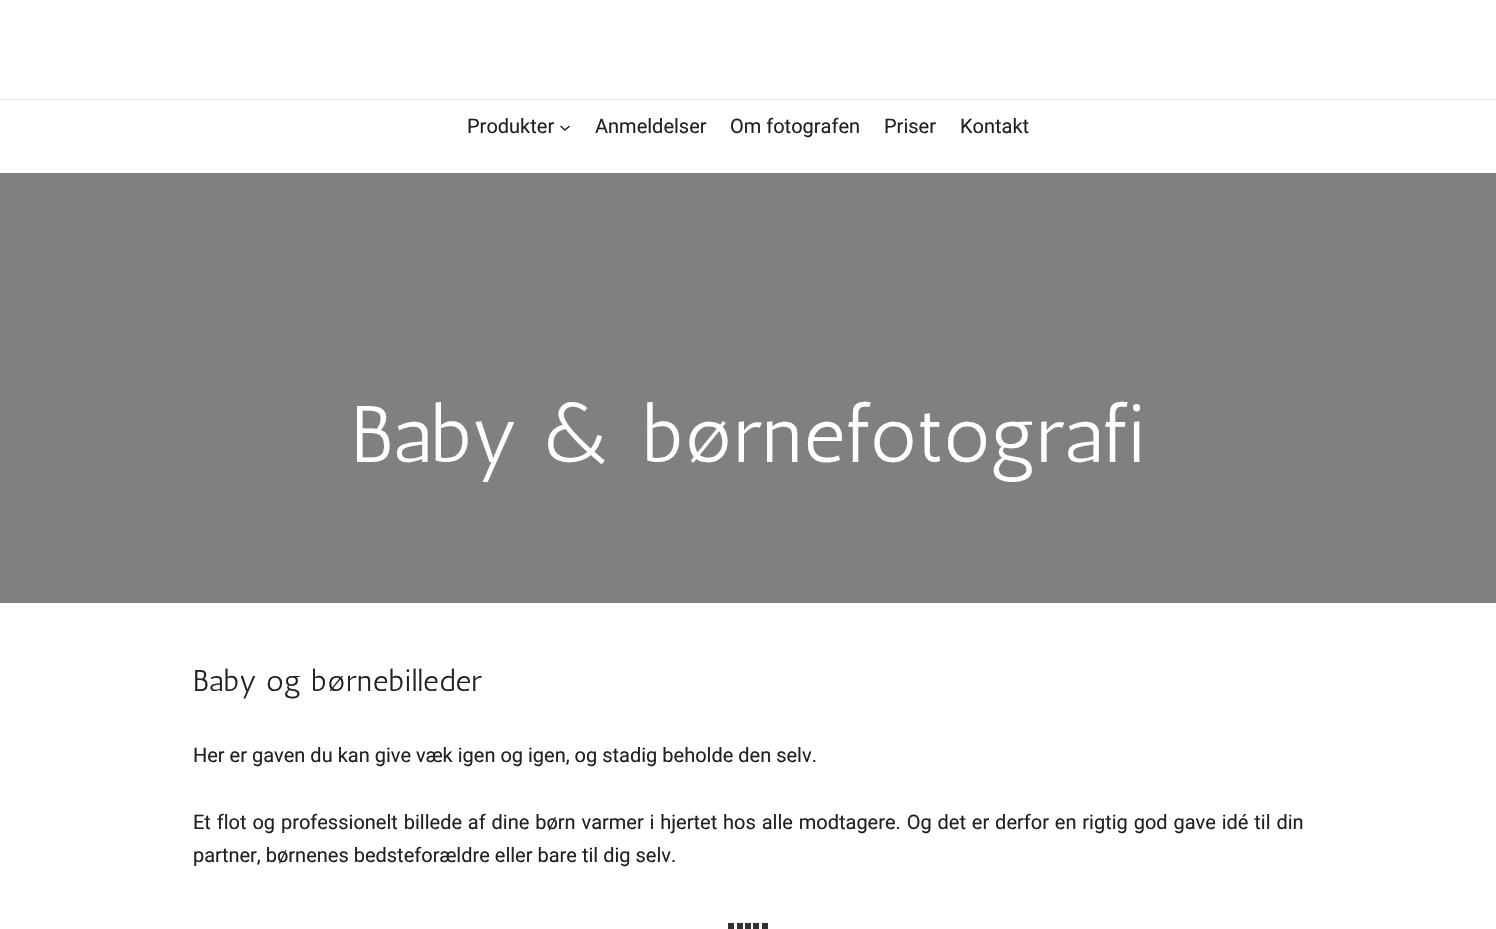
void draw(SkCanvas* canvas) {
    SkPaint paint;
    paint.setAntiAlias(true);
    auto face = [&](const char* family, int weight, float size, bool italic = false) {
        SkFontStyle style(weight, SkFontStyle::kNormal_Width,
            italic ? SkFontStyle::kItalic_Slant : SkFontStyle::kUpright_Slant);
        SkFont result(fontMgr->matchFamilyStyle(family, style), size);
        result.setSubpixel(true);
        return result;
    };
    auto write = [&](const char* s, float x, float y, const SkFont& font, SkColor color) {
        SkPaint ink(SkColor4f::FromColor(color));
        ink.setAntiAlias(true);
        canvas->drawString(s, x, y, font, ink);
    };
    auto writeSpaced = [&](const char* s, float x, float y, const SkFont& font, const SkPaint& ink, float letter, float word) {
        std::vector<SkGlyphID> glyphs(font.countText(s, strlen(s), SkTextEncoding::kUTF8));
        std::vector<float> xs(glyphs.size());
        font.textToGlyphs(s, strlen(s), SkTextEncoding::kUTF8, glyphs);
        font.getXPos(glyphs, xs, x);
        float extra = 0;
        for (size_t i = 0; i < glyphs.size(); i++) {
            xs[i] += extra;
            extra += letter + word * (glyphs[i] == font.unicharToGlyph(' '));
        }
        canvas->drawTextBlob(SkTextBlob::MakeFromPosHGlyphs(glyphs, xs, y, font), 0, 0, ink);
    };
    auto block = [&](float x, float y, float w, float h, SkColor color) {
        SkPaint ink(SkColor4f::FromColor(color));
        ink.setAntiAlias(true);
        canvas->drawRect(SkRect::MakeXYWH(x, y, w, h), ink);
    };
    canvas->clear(SK_ColorWHITE);
    block(0, 99, 1496, 1, SkColorSetRGB(234, 234, 234));
    auto kFont1 = face("Roboto", 400, 20);
    write("Produkter", 467, 133, kFont1, SkColorSetRGB(33, 33, 33));
    paint.setStyle(SkPaint::kStroke_Style);
    paint.setStrokeWidth(1.5f);
    paint.setColor(SkColorSetRGB(33, 33, 33));
    canvas->drawPath(SkPathBuilder().moveTo(560.5f, 126).lineTo(565, 130).lineTo(569.5f, 126).detach(), paint);
    write("Anmeldelser", 595, 133, kFont1, SkColorSetRGB(33, 33, 33));
    write("Om fotografen", 730, 133, kFont1, SkColorSetRGB(33, 33, 33));
    write("Priser", 884, 133, kFont1, SkColorSetRGB(33, 33, 33));
    write("Kontakt", 960, 133, kFont1, SkColorSetRGB(33, 33, 33));
    block(0, 173, 1496, 430, SkColorSetRGB(128, 128, 128));
    auto kFont2 = face("Antic", 400, 80);
    paint.setStyle(SkPaint::kFill_Style);
    paint.setColor(SK_ColorWHITE);
    writeSpaced("Baby & børnefotografi", 351, 462, kFont2, paint, 0.5f, 0);
    auto kFont3 = face("Antic", 400, 30);
    paint.setColor(SkColorSetRGB(33, 33, 33));
    writeSpaced("Baby og børnebilleder", 193, 691, kFont3, paint, 0.5f, 0);
    write("Her er gaven du kan give væk igen og igen, og stadig beholde den selv.", 193, 762, kFont1, SkColorSetRGB(33, 33, 33));
    writeSpaced("Et flot og professionelt billede af dine børn varmer i hjertet hos alle modtagere. Og det er derfor en rigtig god gave idé til din", 193, 829, kFont1, paint, 0, 0.9f);
    write("partner, børnenes bedsteforældre eller bare til dig selv.", 193, 862, kFont1, SkColorSetRGB(33, 33, 33));
    block(728, 923, 6, 6, SkColorSetRGB(51, 51, 51));
    block(737, 923, 6, 6, SkColorSetRGB(51, 51, 51));
    block(745, 923, 6, 6, SkColorSetRGB(51, 51, 51));
    block(753, 923, 6, 6, SkColorSetRGB(51, 51, 51));
    block(762, 923, 6, 6, SkColorSetRGB(51, 51, 51));
}
